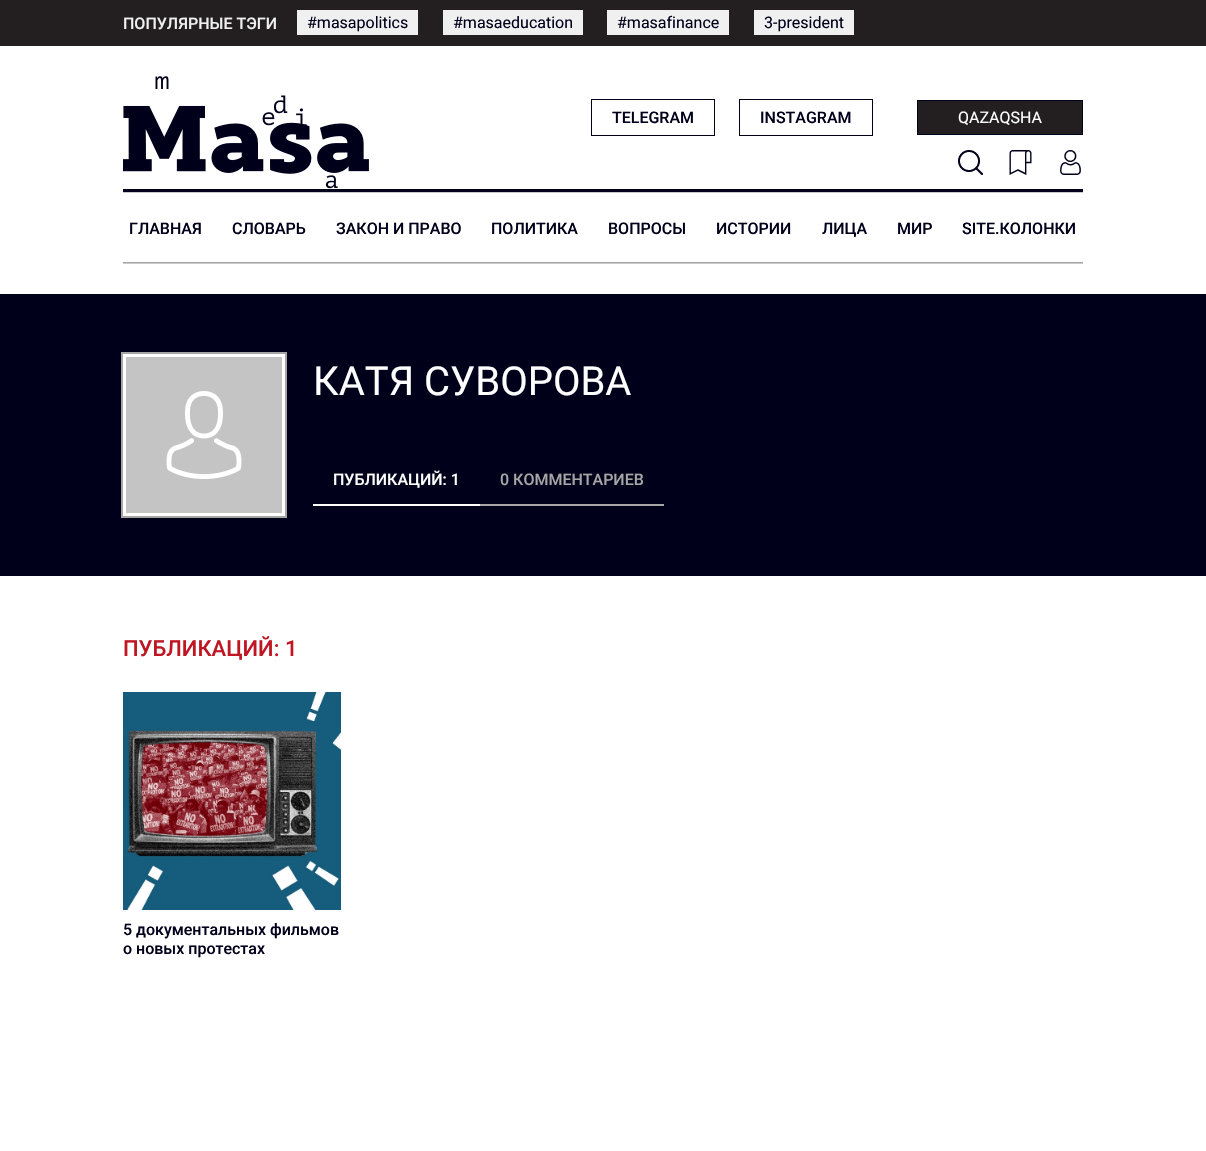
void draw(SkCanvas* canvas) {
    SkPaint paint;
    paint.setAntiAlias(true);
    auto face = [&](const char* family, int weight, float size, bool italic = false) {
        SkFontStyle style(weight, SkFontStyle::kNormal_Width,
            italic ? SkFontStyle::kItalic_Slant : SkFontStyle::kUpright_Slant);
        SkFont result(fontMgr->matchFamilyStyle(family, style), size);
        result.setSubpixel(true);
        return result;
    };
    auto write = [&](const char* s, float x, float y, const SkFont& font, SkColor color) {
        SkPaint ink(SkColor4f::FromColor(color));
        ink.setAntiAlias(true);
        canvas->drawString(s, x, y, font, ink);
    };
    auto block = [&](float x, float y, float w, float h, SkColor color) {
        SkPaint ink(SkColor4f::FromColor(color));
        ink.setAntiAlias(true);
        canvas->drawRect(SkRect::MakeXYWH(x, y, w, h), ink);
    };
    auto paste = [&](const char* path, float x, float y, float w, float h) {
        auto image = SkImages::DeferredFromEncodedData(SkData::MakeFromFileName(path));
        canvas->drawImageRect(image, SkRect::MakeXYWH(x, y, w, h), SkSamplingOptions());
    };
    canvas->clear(SK_ColorWHITE);
    block(0, 0, 1206, 46, SkColorSetRGB(35, 31, 32));
    auto kFont1 = face("Roboto", 500, 16);
    write("ПОПУЛЯРНЫЕ ТЭГИ", 123, 29, kFont1, SkColorSetRGB(240, 240, 240));
    block(297, 10, 121, 25, SkColorSetRGB(240, 240, 240));
    auto kFont2 = face("Roboto", 400, 16);
    write("#masapolitics", 307, 28, kFont2, SkColorSetRGB(0, 0, 27));
    block(443, 10, 140, 25, SkColorSetRGB(240, 240, 240));
    write("#masaeducation", 453, 28, kFont2, SkColorSetRGB(0, 0, 27));
    block(607, 10, 122, 25, SkColorSetRGB(240, 240, 240));
    write("#masafinance", 617, 28, kFont2, SkColorSetRGB(0, 0, 27));
    block(754, 10, 100, 25, SkColorSetRGB(240, 240, 240));
    write("3-president", 764, 28, kFont2, SkColorSetRGB(0, 0, 27));
    paste("pic1.png", 123, 76, 246, 113);
    paint.setStyle(SkPaint::kStroke_Style);
    paint.setStrokeWidth(1);
    paint.setColor(SkColorSetRGB(0, 0, 27));
    canvas->drawRect(SkRect::MakeXYWH(591.5f, 99.5f, 123, 36), paint);
    write("TELEGRAM", 612, 123, kFont1, SkColorSetRGB(0, 0, 27));
    canvas->drawRect(SkRect::MakeXYWH(739.5f, 99.5f, 133, 36), paint);
    write("INSTAGRAM", 760, 123, kFont1, SkColorSetRGB(0, 0, 27));
    paint.setStyle(SkPaint::kFill_Style);
    paint.setColor(SkColorSetRGB(35, 31, 32));
    canvas->drawRect(SkRect::MakeXYWH(917.5f, 100.5f, 165, 34), paint);
    paint.setStyle(SkPaint::kStroke_Style);
    paint.setColor(SkColorSetRGB(0, 0, 27));
    canvas->drawRect(SkRect::MakeXYWH(917.5f, 100.5f, 165, 34), paint);
    write("QAZAQSHA", 958, 123, kFont2, SK_ColorWHITE);
    paste("pic2.png", 958, 150, 25, 25);
    paste("pic3.png", 1009, 150, 23, 25);
    paste("pic4.png", 1060, 150, 21, 25);
    block(123, 189, 960, 3, SkColorSetRGB(0, 0, 27));
    block(123, 192, 960, 1, SkColorSetRGB(202, 202, 202));
    write("ГЛАВНАЯ", 129, 234, kFont1, SkColorSetRGB(0, 0, 27));
    write("СЛОВАРЬ", 232, 234, kFont1, SkColorSetRGB(0, 0, 27));
    write("ЗАКОН И ПРАВО", 336, 234, kFont1, SkColorSetRGB(0, 0, 27));
    write("ПОЛИТИКА", 491, 234, kFont1, SkColorSetRGB(0, 0, 27));
    write("ВОПРОСЫ", 608, 234, kFont1, SkColorSetRGB(0, 0, 27));
    write("ИСТОРИИ", 716, 234, kFont1, SkColorSetRGB(0, 0, 27));
    write("ЛИЦА", 822, 234, kFont1, SkColorSetRGB(0, 0, 27));
    write("МИР", 897, 234, kFont1, SkColorSetRGB(0, 0, 27));
    write("SITE.КОЛОНКИ", 962, 234, kFont1, SkColorSetRGB(0, 0, 27));
    block(123, 262, 960, 1, SkColorSetRGB(166, 166, 166));
    block(123, 263, 960, 1, SkColorSetRGB(202, 202, 202));
    block(0, 294, 1206, 282, SkColorSetRGB(0, 0, 27));
    paste("pic5.png", 123, 354, 162, 162);
    paint.setStrokeWidth(2);
    paint.setColor(SkColorSetRGB(166, 166, 166));
    canvas->drawRect(SkRect::MakeXYWH(122, 353, 164, 164), paint);
    auto kFont3 = face("Roboto", 400, 40);
    write("КАТЯ СУВОРОВА", 313, 395, kFont3, SK_ColorWHITE);
    write("ПУБЛИКАЦИЙ: 1", 333, 485, kFont1, SK_ColorWHITE);
    block(313, 504, 167, 2, SK_ColorWHITE);
    write("0 КОММЕНТАРИЕВ", 500, 485, kFont1, SkColorSetRGB(166, 166, 166));
    block(480, 504, 184, 2, SkColorSetRGB(166, 166, 166));
    auto kFont4 = face("Roboto", 500, 22);
    write("ПУБЛИКАЦИЙ: 1", 123, 656, kFont4, SkColorSetRGB(190, 22, 34));
    paste("pic6.png", 123, 692, 218, 218);
    write("5 документальных фильмов", 123, 935, kFont1, SkColorSetRGB(0, 0, 27));
    write("о новых протестах", 123, 954, kFont1, SkColorSetRGB(0, 0, 27));
}
